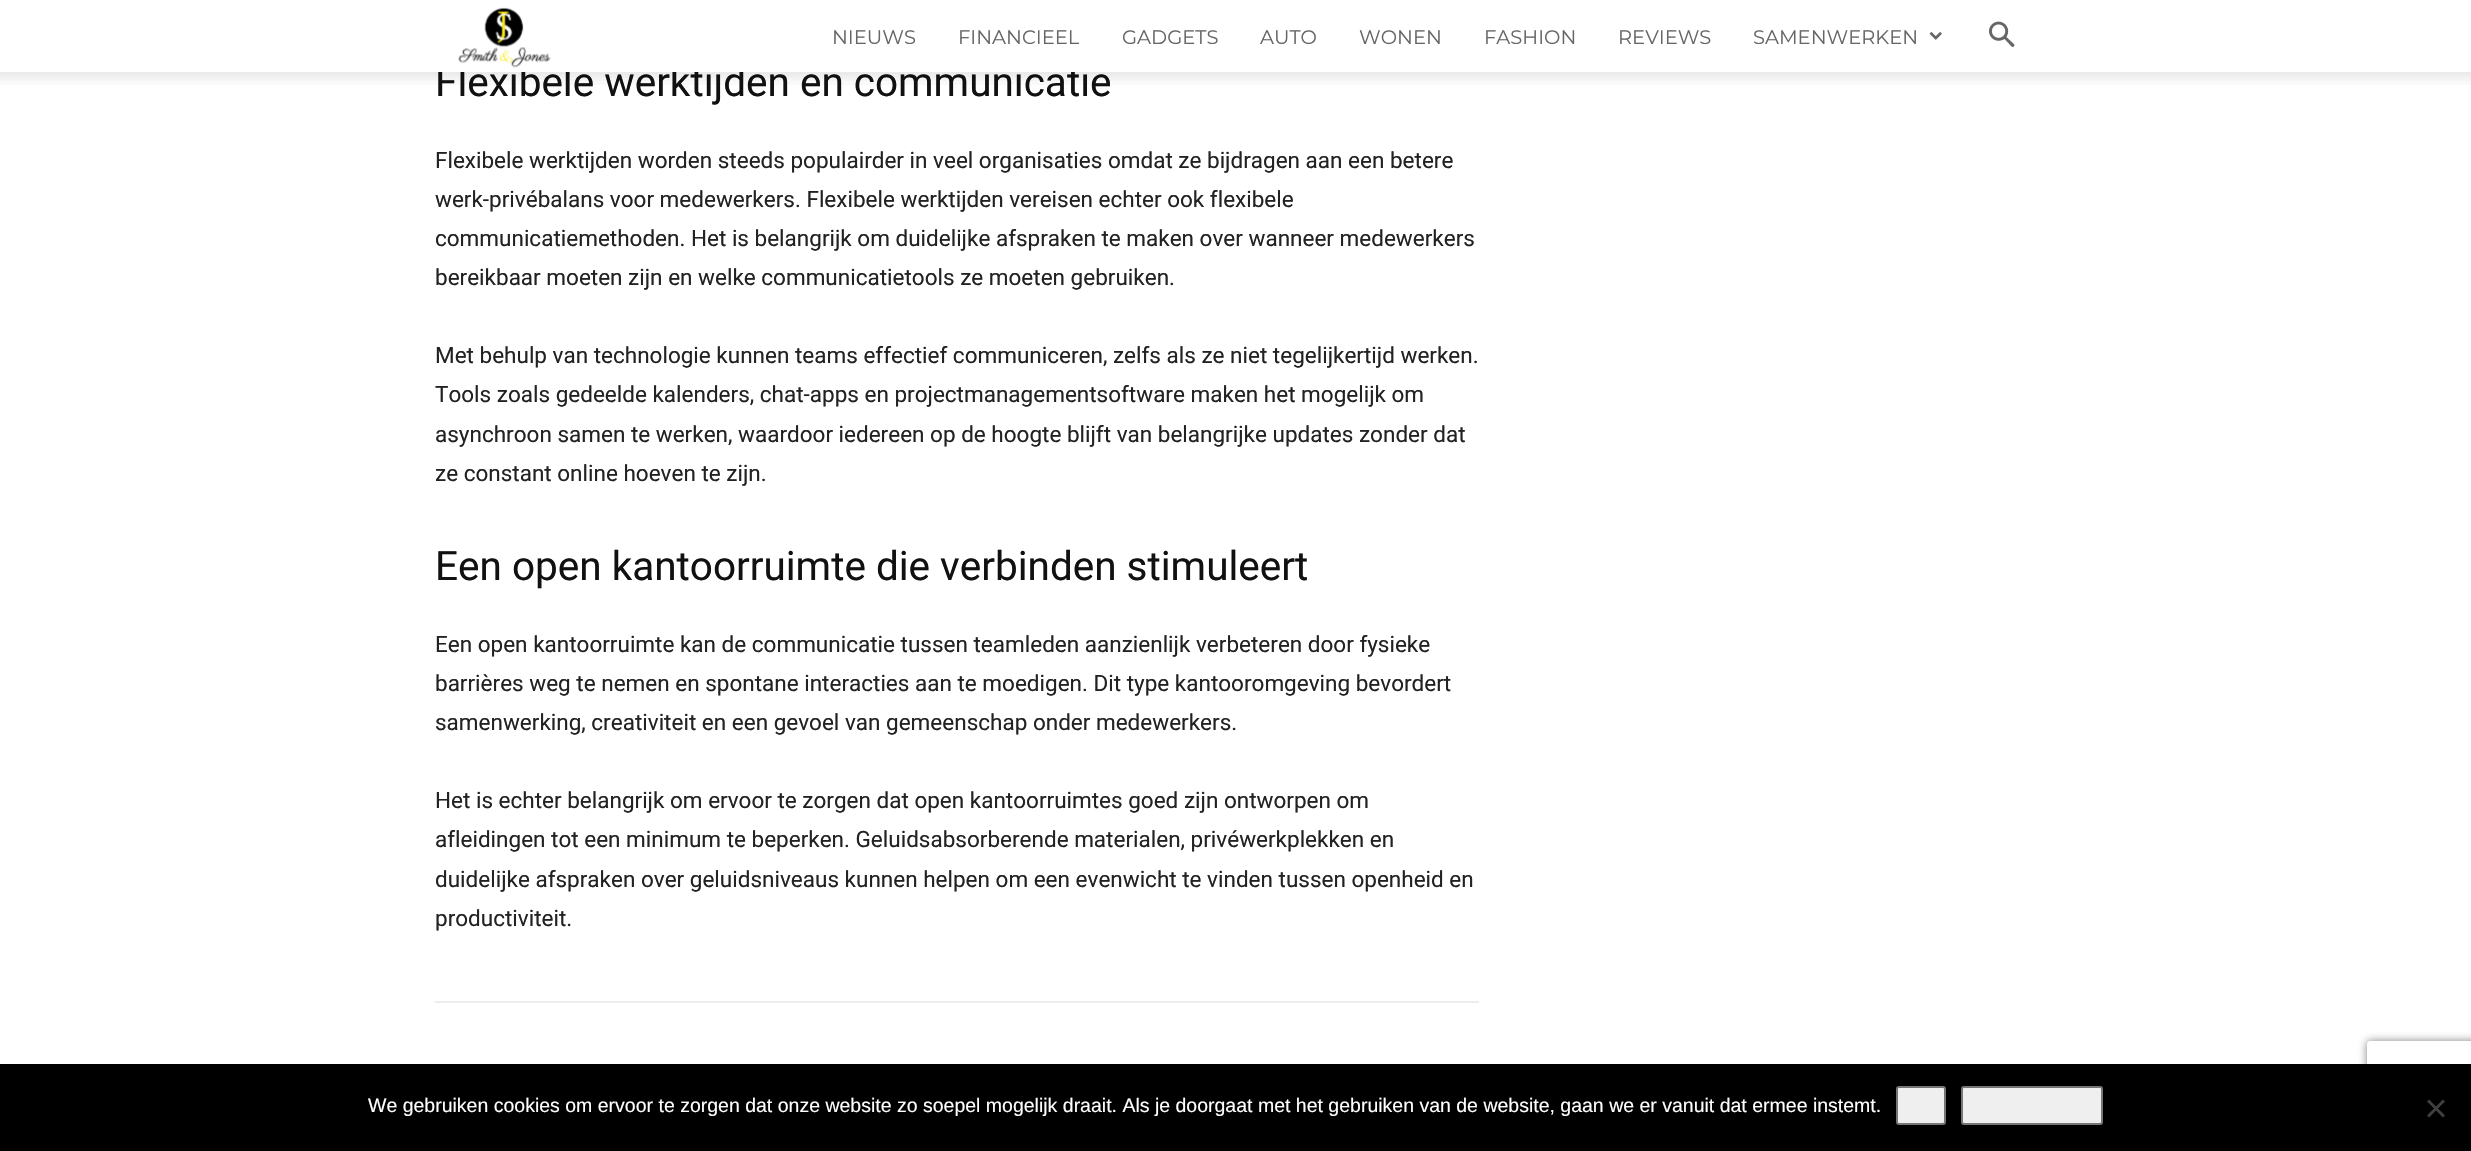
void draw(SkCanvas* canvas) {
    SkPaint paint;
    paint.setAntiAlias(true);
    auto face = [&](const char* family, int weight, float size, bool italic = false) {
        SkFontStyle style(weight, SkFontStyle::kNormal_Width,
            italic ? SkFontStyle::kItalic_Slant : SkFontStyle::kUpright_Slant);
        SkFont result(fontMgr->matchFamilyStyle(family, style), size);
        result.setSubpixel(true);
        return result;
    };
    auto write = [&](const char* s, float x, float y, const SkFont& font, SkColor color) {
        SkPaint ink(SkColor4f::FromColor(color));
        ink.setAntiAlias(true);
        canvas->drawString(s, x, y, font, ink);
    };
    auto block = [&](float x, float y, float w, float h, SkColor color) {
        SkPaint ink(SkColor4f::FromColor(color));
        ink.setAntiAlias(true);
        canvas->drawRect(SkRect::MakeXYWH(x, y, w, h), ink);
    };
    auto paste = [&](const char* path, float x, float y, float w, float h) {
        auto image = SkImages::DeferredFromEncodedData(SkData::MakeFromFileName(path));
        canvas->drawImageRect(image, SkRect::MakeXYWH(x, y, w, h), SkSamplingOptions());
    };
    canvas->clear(SK_ColorWHITE);
    auto kFont1 = face("Roboto", 400, 40.5f);
    write("Flexibele werktijden en communicatie", 435, 96, kFont1, SkColorSetRGB(17, 17, 17));
    block(438, 65, 650, 7, SK_ColorWHITE);
    paste("pic1.png", 458, 7, 93, 61);
    auto kFont2 = face("Montserrat", 400, 19.5f);
    write("NIEUWS", 832, 44, kFont2, SkColorSetRGB(102, 102, 102));
    write("FINANCIEEL", 958, 44, kFont2, SkColorSetRGB(102, 102, 102));
    write("GADGETS", 1122, 44, kFont2, SkColorSetRGB(102, 102, 102));
    write("AUTO", 1260, 44, kFont2, SkColorSetRGB(102, 102, 102));
    write("WONEN", 1359, 44, kFont2, SkColorSetRGB(102, 102, 102));
    write("FASHION", 1484, 44, kFont2, SkColorSetRGB(102, 102, 102));
    write("REVIEWS", 1618, 44, kFont2, SkColorSetRGB(102, 102, 102));
    write("SAMENWERKEN", 1753, 44, kFont2, SkColorSetRGB(102, 102, 102));
    paste("pic2.png", 1929, 32, 13, 8);
    paste("pic3.png", 1989, 21, 26, 26);
    paste("pic4.png", 0, 72, 2471, 13);
    auto kFont3 = face("Roboto", 400, 22.5f);
    write("Flexibele werktijden worden steeds populairder in veel organisaties omdat ze bijdragen aan een betere", 435, 168, kFont3, SkColorSetRGB(34, 34, 34));
    write("werk-privébalans voor medewerkers. Flexibele werktijden vereisen echter ook flexibele", 435, 207, kFont3, SkColorSetRGB(34, 34, 34));
    write("communicatiemethoden. Het is belangrijk om duidelijke afspraken te maken over wanneer medewerkers", 435, 246, kFont3, SkColorSetRGB(34, 34, 34));
    write("bereikbaar moeten zijn en welke communicatietools ze moeten gebruiken.", 435, 285, kFont3, SkColorSetRGB(34, 34, 34));
    write("Met behulp van technologie kunnen teams effectief communiceren, zelfs als ze niet tegelijkertijd werken.", 435, 363, kFont3, SkColorSetRGB(34, 34, 34));
    write("Tools zoals gedeelde kalenders, chat-apps en projectmanagementsoftware maken het mogelijk om", 435, 402, kFont3, SkColorSetRGB(34, 34, 34));
    write("asynchroon samen te werken, waardoor iedereen op de hoogte blijft van belangrijke updates zonder dat", 435, 442, kFont3, SkColorSetRGB(34, 34, 34));
    write("ze constant online hoeven te zijn.", 435, 481, kFont3, SkColorSetRGB(34, 34, 34));
    write("Een open kantoorruimte die verbinden stimuleert", 435, 580, kFont1, SkColorSetRGB(17, 17, 17));
    write("Een open kantoorruimte kan de communicatie tussen teamleden aanzienlijk verbeteren door fysieke", 435, 652, kFont3, SkColorSetRGB(34, 34, 34));
    write("barrières weg te nemen en spontane interacties aan te moedigen. Dit type kantooromgeving bevordert", 435, 691, kFont3, SkColorSetRGB(34, 34, 34));
    write("samenwerking, creativiteit en een gevoel van gemeenschap onder medewerkers.", 435, 730, kFont3, SkColorSetRGB(34, 34, 34));
    write("Het is echter belangrijk om ervoor te zorgen dat open kantoorruimtes goed zijn ontworpen om", 435, 808, kFont3, SkColorSetRGB(34, 34, 34));
    write("afleidingen tot een minimum te beperken. Geluidsabsorberende materialen, privéwerkplekken en", 435, 847, kFont3, SkColorSetRGB(34, 34, 34));
    write("duidelijke afspraken over geluidsniveaus kunnen helpen om een evenwicht te vinden tussen openheid en", 435, 887, kFont3, SkColorSetRGB(34, 34, 34));
    write("productiviteit.", 435, 926, kFont3, SkColorSetRGB(34, 34, 34));
    block(435, 1001, 1044, 2, SkColorSetRGB(237, 237, 237));
    canvas->save();
    canvas->clipPath(SkPathBuilder(SkPathFillType::kEvenOdd).moveTo(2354, 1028).lineTo(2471, 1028).lineTo(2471, 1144).lineTo(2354, 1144).close().moveTo(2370, 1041).lineTo(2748, 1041).cubicTo(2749.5f, 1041, 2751, 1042.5f, 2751, 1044).lineTo(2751, 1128).cubicTo(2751, 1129.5f, 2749.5f, 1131, 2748, 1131).lineTo(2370, 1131).cubicTo(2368.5f, 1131, 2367, 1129.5f, 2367, 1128).lineTo(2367, 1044).cubicTo(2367, 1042.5f, 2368.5f, 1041, 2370, 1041).close().detach(), true);
    paint.setColor(SkColorSetRGB(128, 128, 128));
    paint.setMaskFilter(SkMaskFilter::MakeBlur(kNormal_SkBlurStyle, 4));
    canvas->drawRoundRect(SkRect::MakeXYWH(2367, 1041, 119, 90), 3, 3, paint);
    paint.setMaskFilter(nullptr);
    canvas->restore();
    block(0, 1064, 2471, 87, SK_ColorBLACK);
    auto kFont4 = face("Liberation Sans", 400, 19.5f);
    write("We gebruiken cookies om ervoor te zorgen dat onze website zo soepel mogelijk draait. Als je doorgaat met het gebruiken van de website, gaan we er vanuit dat ermee instemt.", 368, 1112, kFont4, SK_ColorWHITE);
    paint.setColor(SkColorSetRGB(239, 239, 239));
    canvas->drawRoundRect(SkRect::MakeXYWH(1897, 1087, 48, 37), 2, 2, paint);
    paint.setStyle(SkPaint::kStroke_Style);
    paint.setStrokeWidth(2);
    paint.setColor(SkColorSetRGB(118, 118, 118));
    canvas->drawRoundRect(SkRect::MakeXYWH(1897, 1087, 48, 37), 2, 2, paint);
    paint.setStyle(SkPaint::kFill_Style);
    paint.setColor(SkColorSetRGB(239, 239, 239));
    canvas->drawRoundRect(SkRect::MakeXYWH(1962, 1087, 140, 37), 2, 2, paint);
    paint.setStyle(SkPaint::kStroke_Style);
    paint.setColor(SkColorSetRGB(118, 118, 118));
    canvas->drawRoundRect(SkRect::MakeXYWH(1962, 1087, 140, 37), 2, 2, paint);
    paint.setStyle(SkPaint::kFill_Style);
    paint.setColor(SkColorSetRGB(64, 64, 64));
    canvas->drawPath(SkPathBuilder().moveTo(2443, 1099.5f).lineTo(2445, 1101.5f).lineTo(2429, 1117.5f).lineTo(2427, 1115.5f).close().detach(), paint);
    canvas->drawPath(SkPathBuilder().moveTo(2427, 1101.5f).lineTo(2429, 1099.5f).lineTo(2445, 1115.5f).lineTo(2443, 1117.5f).close().detach(), paint);
}
